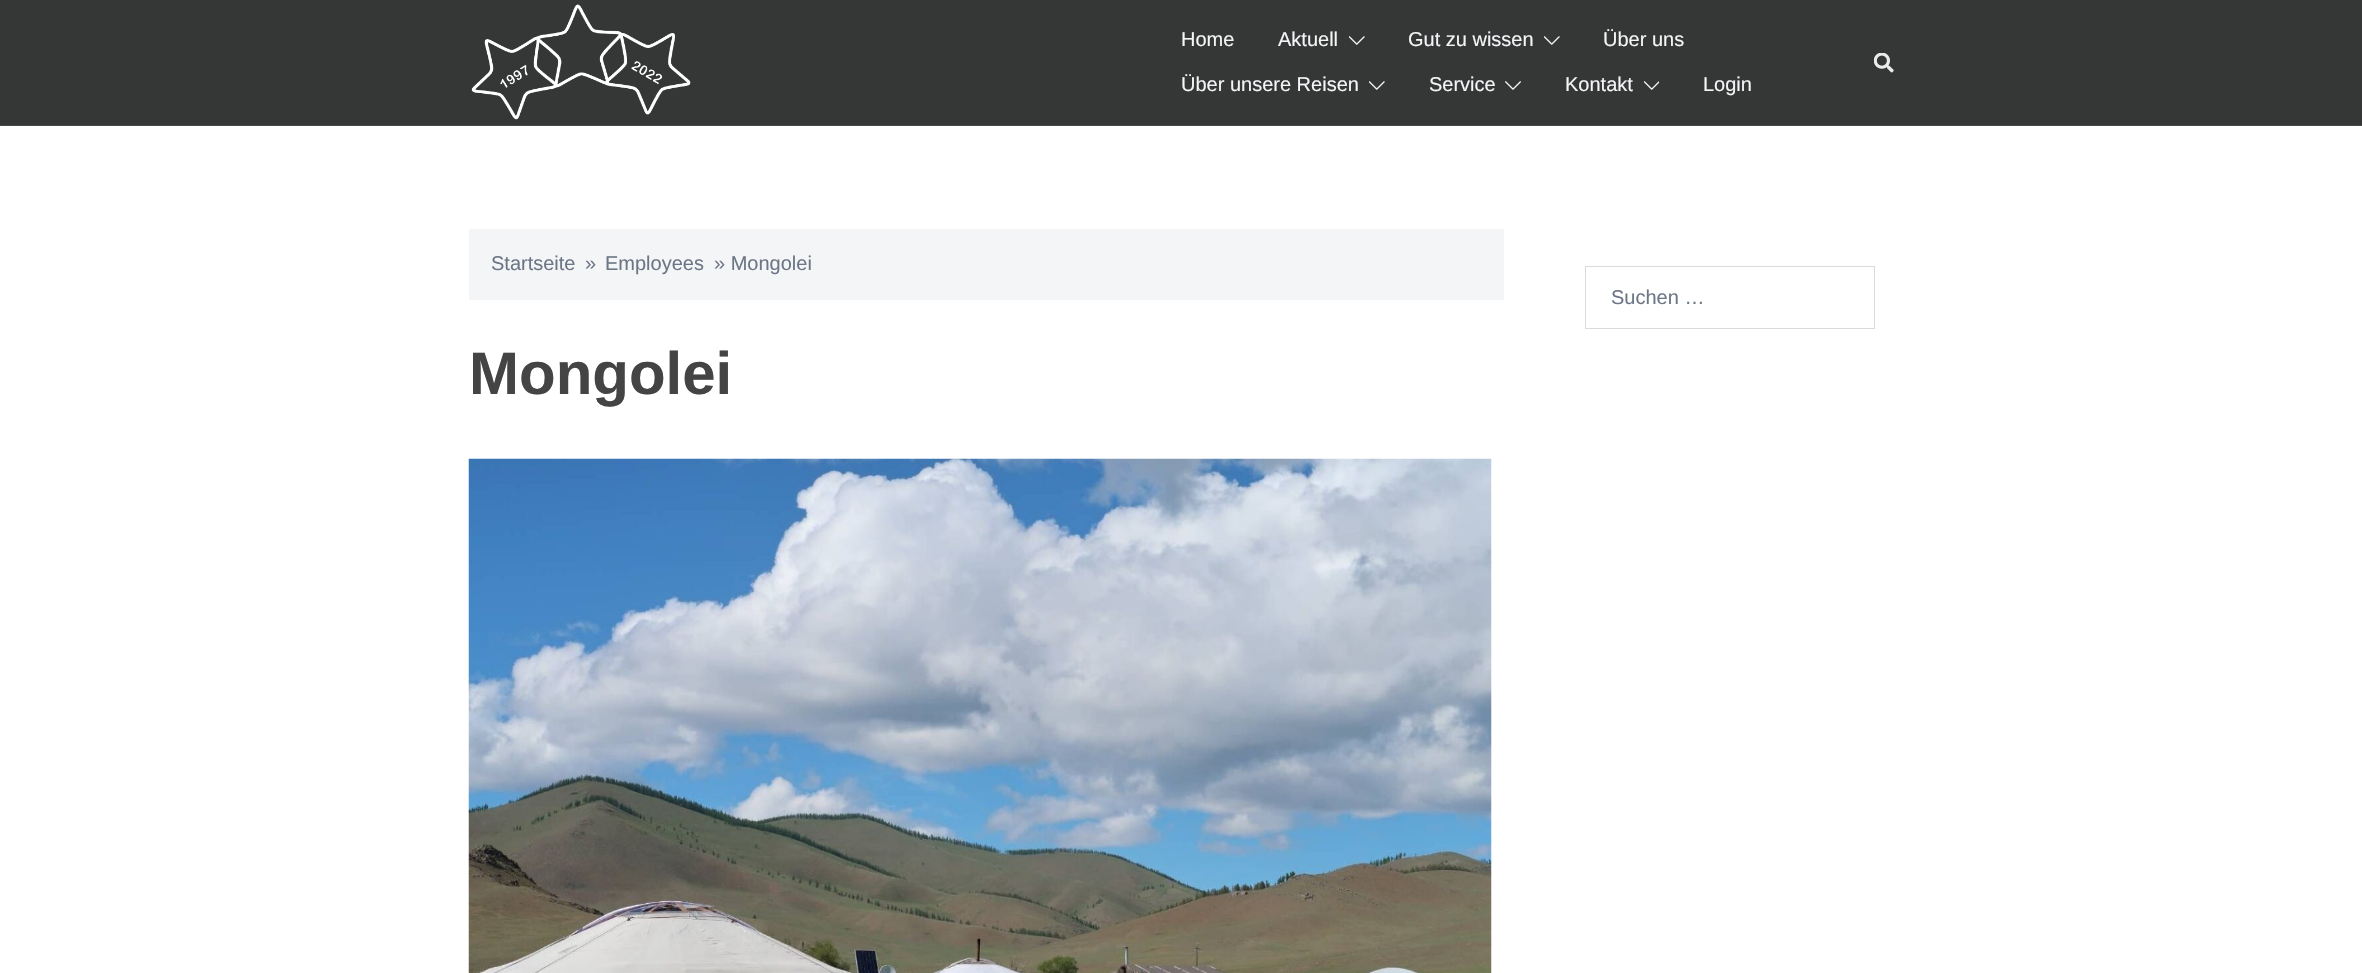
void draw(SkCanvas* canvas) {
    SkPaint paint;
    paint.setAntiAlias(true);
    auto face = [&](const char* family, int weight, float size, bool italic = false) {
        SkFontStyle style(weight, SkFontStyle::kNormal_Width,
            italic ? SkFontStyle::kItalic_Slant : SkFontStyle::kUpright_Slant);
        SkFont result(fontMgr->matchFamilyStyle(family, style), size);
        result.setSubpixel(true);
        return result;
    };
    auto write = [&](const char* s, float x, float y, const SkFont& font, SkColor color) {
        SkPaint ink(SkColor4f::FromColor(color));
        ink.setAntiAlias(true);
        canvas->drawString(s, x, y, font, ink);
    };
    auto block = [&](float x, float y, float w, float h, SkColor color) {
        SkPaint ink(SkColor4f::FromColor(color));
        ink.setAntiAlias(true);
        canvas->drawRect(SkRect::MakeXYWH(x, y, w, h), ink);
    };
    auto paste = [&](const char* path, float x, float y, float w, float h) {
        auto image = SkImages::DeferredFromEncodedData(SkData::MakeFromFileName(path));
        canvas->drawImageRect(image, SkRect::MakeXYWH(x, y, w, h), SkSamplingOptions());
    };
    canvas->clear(SK_ColorWHITE);
    block(0, 0, 2362, 125, SkColorSetRGB(53, 55, 55));
    block(0, 125, 2362, 1, SkColorSetRGB(71, 73, 73));
    paste("pic1.png", 471, 4, 220, 116);
    auto kFont1 = face("Liberation Sans", 400, 20);
    write("Home", 1181, 46, kFont1, SkColorSetRGB(244, 245, 247));
    write("Aktuell", 1278, 46, kFont1, SkColorSetRGB(244, 245, 247));
    paste("pic2.png", 1349, 36, 16, 9);
    write("Gut zu wissen", 1408, 46, kFont1, SkColorSetRGB(244, 245, 247));
    paste("pic2.png", 1544, 36, 16, 9);
    write("Über uns", 1603, 46, kFont1, SkColorSetRGB(244, 245, 247));
    write("Über unsere Reisen", 1181, 91, kFont1, SkColorSetRGB(244, 245, 247));
    paste("pic2.png", 1369, 81, 16, 9);
    write("Service", 1429, 91, kFont1, SkColorSetRGB(244, 245, 247));
    paste("pic3.png", 1505, 81, 16, 9);
    write("Kontakt", 1565, 91, kFont1, SkColorSetRGB(244, 245, 247));
    paste("pic4.png", 1644, 81, 15, 9);
    write("Login", 1703, 91, kFont1, SkColorSetRGB(244, 245, 247));
    paste("pic5.png", 1874, 53, 20, 20);
    block(469, 229, 1035, 71, SkColorSetRGB(244, 245, 247));
    write("Startseite", 491, 270, kFont1, SkColorSetRGB(109, 118, 133));
    write("»", 585, 270, kFont1, SkColorSetRGB(109, 118, 133));
    write("Employees", 605, 270, kFont1, SkColorSetRGB(109, 118, 133));
    write("» Mongolei", 714, 270, kFont1, SkColorSetRGB(109, 118, 133));
    auto kFont2 = face("Liberation Sans", 700, 60);
    write("Mongolei", 469, 394, kFont2, SkColorSetRGB(68, 68, 68));
    paste("pic6.png", 468, 458, 1024, 515);
    paint.setStyle(SkPaint::kStroke_Style);
    paint.setStrokeWidth(1);
    paint.setColor(SkColorSetRGB(219, 219, 219));
    canvas->drawRect(SkRect::MakeXYWH(1585.5f, 266.5f, 289, 62), paint);
    write("Suchen …", 1611, 304, kFont1, SkColorSetRGB(109, 118, 133));
}
